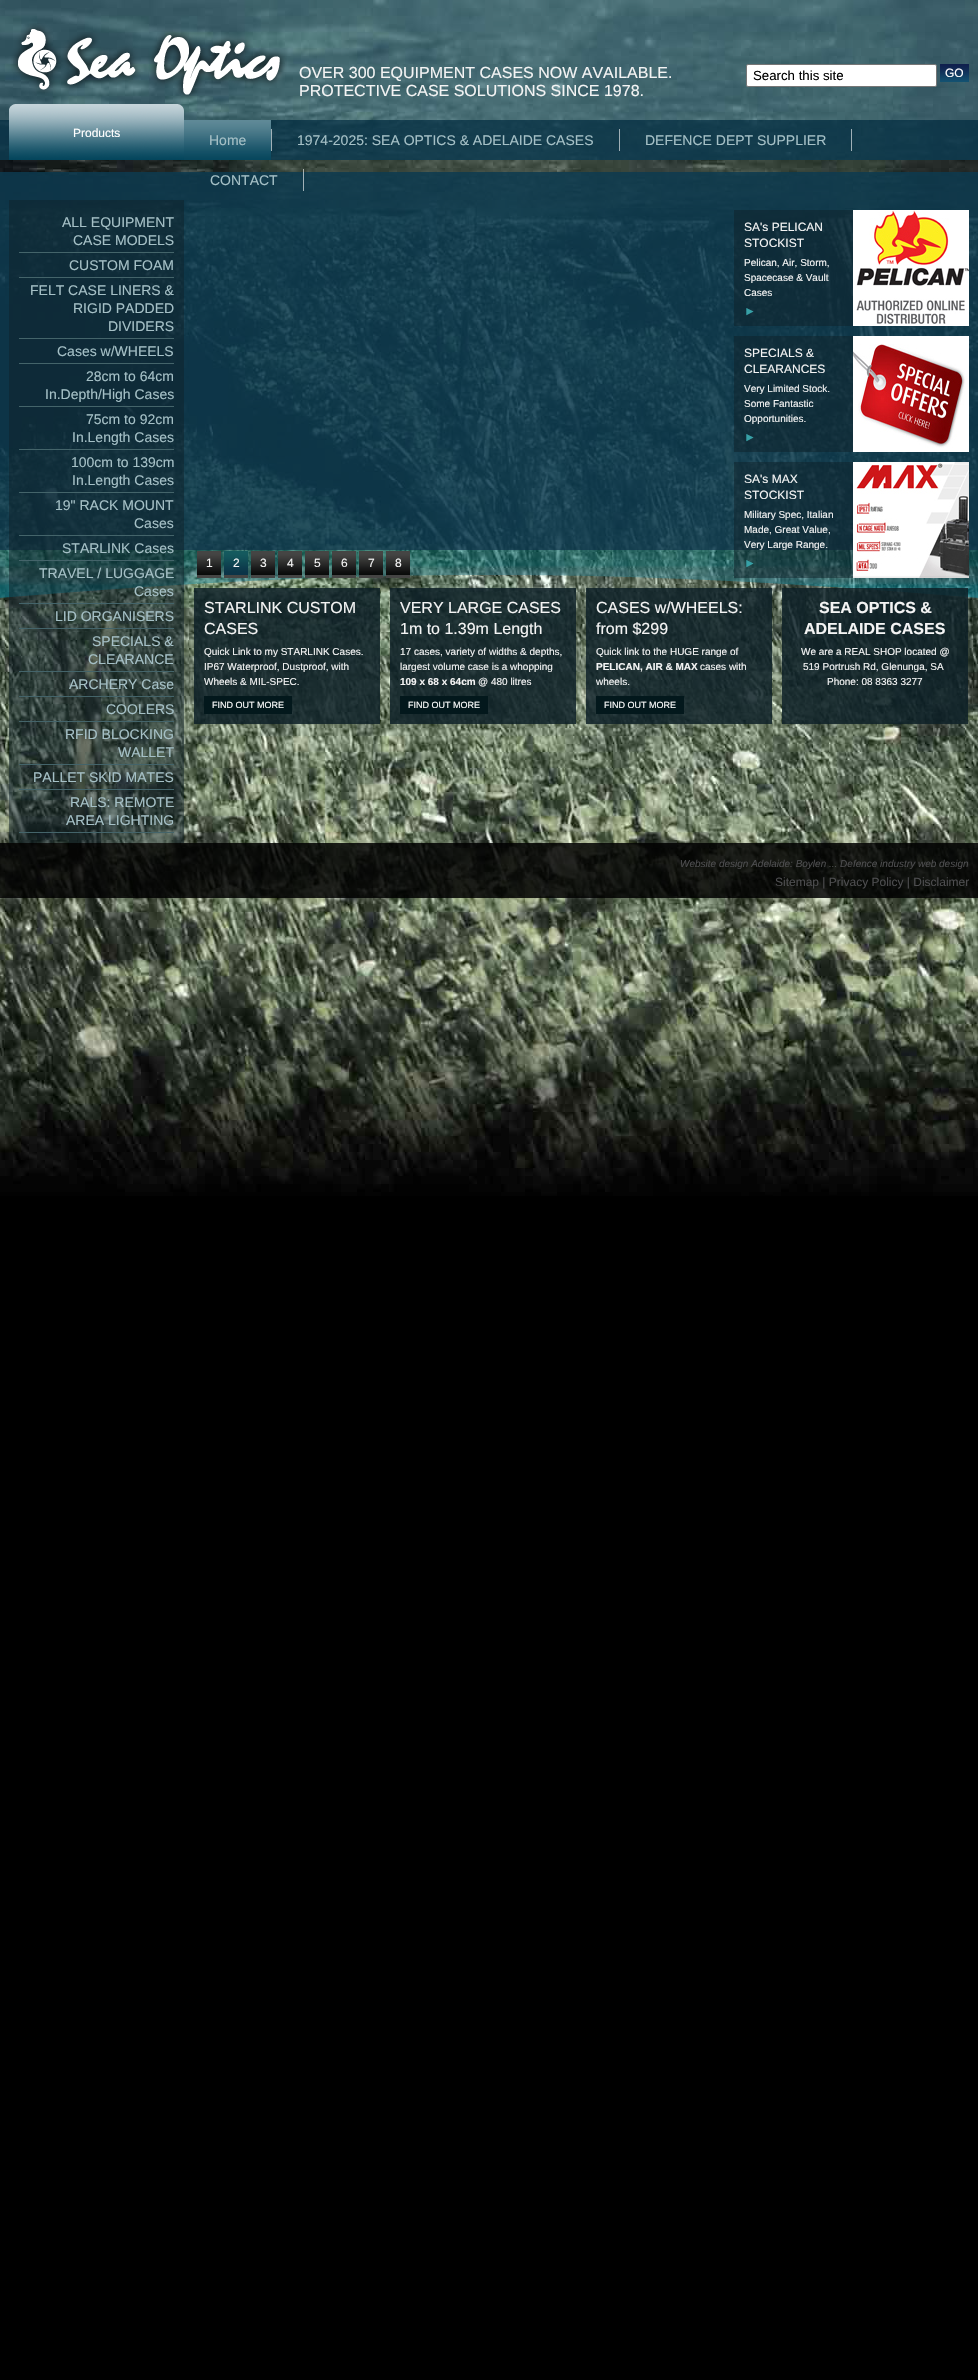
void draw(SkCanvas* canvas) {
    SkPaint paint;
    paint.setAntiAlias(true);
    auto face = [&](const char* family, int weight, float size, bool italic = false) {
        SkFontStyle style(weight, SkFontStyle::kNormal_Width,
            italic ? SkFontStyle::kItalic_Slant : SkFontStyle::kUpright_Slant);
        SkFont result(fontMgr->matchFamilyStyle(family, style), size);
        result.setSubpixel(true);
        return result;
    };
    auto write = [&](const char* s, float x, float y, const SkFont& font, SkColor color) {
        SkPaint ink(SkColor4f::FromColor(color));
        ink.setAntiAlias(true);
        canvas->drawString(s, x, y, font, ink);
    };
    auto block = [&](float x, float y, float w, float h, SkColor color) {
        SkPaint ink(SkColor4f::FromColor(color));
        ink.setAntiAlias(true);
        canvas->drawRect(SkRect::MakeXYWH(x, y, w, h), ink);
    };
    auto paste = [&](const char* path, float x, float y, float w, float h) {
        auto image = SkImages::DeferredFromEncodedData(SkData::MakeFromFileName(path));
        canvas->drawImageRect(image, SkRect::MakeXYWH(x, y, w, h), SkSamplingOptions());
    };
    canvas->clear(SK_ColorBLACK);
    paste("pic1.png", 0, 0, 978, 1196);
    block(0, 0, 978, 120, SkColorSetARGB(128, 78, 139, 163));
    paste("pic2.png", 11, 23, 276, 78);
    auto kFont1 = face("Liberation Sans", 400, 16);
    write("OVER 300 EQUIPMENT CASES NOW AVAILABLE.", 299, 78, kFont1, SkColorSetRGB(244, 244, 244));
    write("PROTECTIVE CASE SOLUTIONS SINCE 1978.", 299, 96, kFont1, SkColorSetRGB(244, 244, 244));
    paint.setColor(SK_ColorWHITE);
    canvas->drawRoundRect(SkRect::MakeXYWH(746.5f, 64.5f, 190, 22), 1.5f, 1.5f, paint);
    paint.setStyle(SkPaint::kStroke_Style);
    paint.setStrokeWidth(1);
    paint.setColor(SkColorSetRGB(118, 118, 118));
    canvas->drawRoundRect(SkRect::MakeXYWH(746.5f, 64.5f, 190, 22), 1.5f, 1.5f, paint);
    auto kFont2 = face("Liberation Sans", 400, 13.25f);
    write("Search this site", 753, 80, kFont2, SK_ColorBLACK);
    paste("pic3.png", 940, 64, 29, 18);
    auto kFont3 = face("Liberation Sans", 400, 12);
    write("GO", 945, 77, kFont3, SK_ColorWHITE);
    block(0, 120, 978, 40, SkColorSetARGB(217, 12, 57, 79));
    paste("pic4.png", 9, 104, 175, 56);
    write("Products", 73, 137, kFont3, SK_ColorWHITE);
    block(271, 129, 1, 22, SkColorSetARGB(153, 255, 255, 255));
    paste("pic5.png", 184, 120, 87, 40);
    auto kFont4 = face("Liberation Sans", 400, 14);
    write("Home", 209, 145, kFont4, SkColorSetRGB(165, 192, 198));
    block(619, 129, 1, 22, SkColorSetRGB(160, 176, 183));
    write("1974-2025: SEA OPTICS & ADELAIDE CASES", 297, 145, kFont4, SkColorSetRGB(165, 192, 198));
    block(851, 129, 1, 22, SkColorSetRGB(160, 176, 183));
    write("DEFENCE DEPT SUPPLIER", 645, 145, kFont4, SkColorSetRGB(165, 192, 198));
    block(0, 172, 978, 378, SkColorSetARGB(217, 12, 57, 79));
    block(303, 169, 1, 22, SkColorSetARGB(153, 255, 255, 255));
    write("CONTACT", 210, 185, kFont4, SkColorSetRGB(165, 192, 198));
    paste("pic11.png", 0, 550, 978, 48);
    block(9, 200, 175, 643, SkColorSetARGB(128, 14, 32, 40));
    block(19, 252, 155, 1, SkColorSetRGB(68, 100, 106));
    write("ALL EQUIPMENT", 62, 227, kFont4, SkColorSetRGB(165, 192, 198));
    write("CASE MODELS", 73, 245, kFont4, SkColorSetRGB(165, 192, 198));
    block(19, 277, 155, 1, SkColorSetRGB(68, 100, 106));
    write("CUSTOM FOAM", 69, 270, kFont4, SkColorSetRGB(165, 192, 198));
    block(19, 338, 155, 1, SkColorSetRGB(68, 100, 106));
    write("FELT CASE LINERS &", 30, 295, kFont4, SkColorSetRGB(165, 192, 198));
    write("RIGID PADDED", 73, 313, kFont4, SkColorSetRGB(165, 192, 198));
    write("DIVIDERS", 108, 331, kFont4, SkColorSetRGB(165, 192, 198));
    block(19, 363, 155, 1, SkColorSetRGB(68, 100, 106));
    write("Cases w/WHEELS", 57, 356, kFont4, SkColorSetRGB(165, 192, 198));
    block(19, 406, 155, 1, SkColorSetRGB(68, 100, 106));
    write("28cm to 64cm", 86, 381, kFont4, SkColorSetRGB(165, 192, 198));
    write("In.Depth/High Cases", 45, 399, kFont4, SkColorSetRGB(165, 192, 198));
    block(19, 449, 155, 1, SkColorSetRGB(68, 100, 106));
    write("75cm to 92cm", 86, 424, kFont4, SkColorSetRGB(165, 192, 198));
    write("In.Length Cases", 72, 442, kFont4, SkColorSetRGB(165, 192, 198));
    block(19, 492, 155, 1, SkColorSetRGB(68, 100, 106));
    write("100cm to 139cm", 71, 467, kFont4, SkColorSetRGB(165, 192, 198));
    write("In.Length Cases", 72, 485, kFont4, SkColorSetRGB(165, 192, 198));
    block(19, 535, 155, 1, SkColorSetRGB(68, 100, 106));
    write("19\" RACK MOUNT", 55, 510, kFont4, SkColorSetRGB(165, 192, 198));
    write("Cases", 134, 528, kFont4, SkColorSetRGB(165, 192, 198));
    block(19, 560, 155, 1, SkColorSetRGB(68, 100, 106));
    write("STARLINK Cases", 62, 553, kFont4, SkColorSetRGB(165, 192, 198));
    block(19, 603, 155, 1, SkColorSetRGB(68, 100, 106));
    write("TRAVEL / LUGGAGE", 39, 578, kFont4, SkColorSetRGB(165, 192, 198));
    write("Cases", 134, 596, kFont4, SkColorSetRGB(165, 192, 198));
    block(19, 628, 155, 1, SkColorSetRGB(68, 100, 106));
    write("LID ORGANISERS", 55, 621, kFont4, SkColorSetRGB(165, 192, 198));
    block(19, 671, 155, 1, SkColorSetRGB(68, 100, 106));
    write("SPECIALS &", 92, 646, kFont4, SkColorSetRGB(165, 192, 198));
    write("CLEARANCE", 88, 664, kFont4, SkColorSetRGB(165, 192, 198));
    block(19, 696, 155, 1, SkColorSetRGB(68, 100, 106));
    write("ARCHERY Case", 69, 689, kFont4, SkColorSetRGB(165, 192, 198));
    block(19, 721, 155, 1, SkColorSetRGB(68, 100, 106));
    write("COOLERS", 106, 714, kFont4, SkColorSetRGB(165, 192, 198));
    block(19, 764, 155, 1, SkColorSetRGB(68, 100, 106));
    write("RFID BLOCKING", 65, 739, kFont4, SkColorSetRGB(165, 192, 198));
    write("WALLET", 118, 757, kFont4, SkColorSetRGB(165, 192, 198));
    block(19, 789, 155, 1, SkColorSetRGB(68, 100, 106));
    write("PALLET SKID MATES", 33, 782, kFont4, SkColorSetRGB(165, 192, 198));
    block(19, 832, 155, 1, SkColorSetRGB(68, 100, 106));
    write("RALS: REMOTE", 70, 807, kFont4, SkColorSetRGB(165, 192, 198));
    write("AREA LIGHTING", 66, 825, kFont4, SkColorSetRGB(165, 192, 198));
    paste("pic6.png", 197, 551, 24, 24);
    write("1", 206, 567, kFont3, SkColorSetRGB(244, 244, 244));
    paste("pic7.png", 224, 551, 24, 24);
    write("2", 233, 567, kFont3, SkColorSetRGB(244, 244, 244));
    paste("pic6.png", 251, 551, 24, 24);
    write("3", 260, 567, kFont3, SkColorSetRGB(244, 244, 244));
    paste("pic6.png", 278, 551, 24, 24);
    write("4", 287, 567, kFont3, SkColorSetRGB(244, 244, 244));
    paste("pic6.png", 305, 551, 24, 24);
    write("5", 314, 567, kFont3, SkColorSetRGB(244, 244, 244));
    paste("pic6.png", 332, 551, 24, 24);
    write("6", 341, 567, kFont3, SkColorSetRGB(244, 244, 244));
    paste("pic6.png", 359, 551, 24, 24);
    write("7", 368, 567, kFont3, SkColorSetRGB(244, 244, 244));
    paste("pic6.png", 386, 551, 24, 24);
    write("8", 395, 567, kFont3, SkColorSetRGB(244, 244, 244));
    block(197, 575, 24, 3, SkColorSetRGB(69, 69, 68));
    block(224, 575, 24, 3, SkColorSetRGB(69, 69, 68));
    block(251, 575, 24, 3, SkColorSetRGB(69, 69, 68));
    block(278, 575, 24, 3, SkColorSetRGB(69, 69, 68));
    block(305, 575, 24, 3, SkColorSetRGB(69, 69, 68));
    block(332, 575, 24, 3, SkColorSetRGB(69, 69, 68));
    block(359, 575, 24, 3, SkColorSetRGB(69, 69, 68));
    block(386, 575, 24, 3, SkColorSetRGB(69, 69, 68));
    block(734, 210, 119, 116, SkColorSetARGB(128, 14, 32, 40));
    write("SA's PELICAN", 744, 231, kFont3, SkColorSetRGB(244, 244, 244));
    write("STOCKIST", 744, 247, kFont3, SkColorSetRGB(244, 244, 244));
    auto kFont5 = face("Liberation Sans", 400, 10);
    write("Pelican, Air, Storm,", 744, 266, kFont5, SkColorSetRGB(244, 244, 244));
    write("Spacecase & Vault", 744, 281, kFont5, SkColorSetRGB(244, 244, 244));
    write("Cases", 744, 296, kFont5, SkColorSetRGB(244, 244, 244));
    write("►", 744, 315, kFont3, SkColorSetRGB(55, 161, 167));
    paste("pic8.png", 853, 210, 116, 116);
    block(734, 336, 119, 116, SkColorSetARGB(128, 14, 32, 40));
    write("SPECIALS &", 744, 357, kFont3, SkColorSetRGB(244, 244, 244));
    write("CLEARANCES", 744, 373, kFont3, SkColorSetRGB(244, 244, 244));
    write("Very Limited Stock.", 744, 392, kFont5, SkColorSetRGB(244, 244, 244));
    write("Some Fantastic", 744, 407, kFont5, SkColorSetRGB(244, 244, 244));
    write("Opportunities.", 744, 422, kFont5, SkColorSetRGB(244, 244, 244));
    write("►", 744, 441, kFont3, SkColorSetRGB(55, 161, 167));
    paste("pic9.png", 853, 336, 116, 116);
    block(734, 462, 119, 116, SkColorSetARGB(128, 14, 32, 40));
    write("SA's MAX", 744, 483, kFont3, SkColorSetRGB(244, 244, 244));
    write("STOCKIST", 744, 499, kFont3, SkColorSetRGB(244, 244, 244));
    write("Military Spec, Italian", 744, 518, kFont5, SkColorSetRGB(244, 244, 244));
    write("Made, Great Value,", 744, 533, kFont5, SkColorSetRGB(244, 244, 244));
    write("Very Large Range.", 744, 548, kFont5, SkColorSetRGB(244, 244, 244));
    write("►", 744, 567, kFont3, SkColorSetRGB(55, 161, 167));
    paste("pic10.png", 853, 462, 116, 116);
    block(194, 588, 186, 136, SkColorSetARGB(217, 13, 32, 39));
    write("STARLINK CUSTOM", 204, 613, kFont1, SkColorSetRGB(244, 244, 244));
    write("CASES", 204, 634, kFont1, SkColorSetRGB(244, 244, 244));
    write("Quick Link to my STARLINK Cases.", 204, 655, kFont5, SkColorSetRGB(244, 244, 244));
    write("IP67 Waterproof, Dustproof, with", 204, 670, kFont5, SkColorSetRGB(244, 244, 244));
    write("Wheels & MIL-SPEC.", 204, 685, kFont5, SkColorSetRGB(244, 244, 244));
    block(204, 696, 88, 18, SkColorSetRGB(3, 24, 28));
    auto kFont6 = face("Liberation Sans", 400, 9);
    write("FIND OUT MORE", 212, 708, kFont6, SK_ColorWHITE);
    block(390, 588, 186, 136, SkColorSetARGB(217, 13, 32, 39));
    write("VERY LARGE CASES", 400, 613, kFont1, SkColorSetRGB(244, 244, 244));
    write("1m to 1.39m Length", 400, 634, kFont1, SkColorSetRGB(244, 244, 244));
    write("17 cases, variety of widths & depths,", 400, 655, kFont5, SkColorSetRGB(244, 244, 244));
    write("largest volume case is a whopping", 400, 670, kFont5, SkColorSetRGB(244, 244, 244));
    auto kFont7 = face("Liberation Sans", 700, 10);
    write("109 x 68 x 64cm", 400, 685, kFont7, SkColorSetRGB(244, 244, 244));
    write("@ 480 litres", 478, 685, kFont5, SkColorSetRGB(244, 244, 244));
    block(400, 696, 88, 18, SkColorSetRGB(3, 24, 28));
    write("FIND OUT MORE", 408, 708, kFont6, SK_ColorWHITE);
    block(586, 588, 186, 136, SkColorSetARGB(217, 13, 32, 39));
    write("CASES w/WHEELS:", 596, 613, kFont1, SkColorSetRGB(244, 244, 244));
    write("from $299", 596, 634, kFont1, SkColorSetRGB(244, 244, 244));
    write("Quick link to the HUGE range of", 596, 655, kFont5, SkColorSetRGB(244, 244, 244));
    write("PELICAN, AIR & MAX", 596, 670, kFont7, SkColorSetRGB(244, 244, 244));
    write("cases with", 700, 670, kFont5, SkColorSetRGB(244, 244, 244));
    write("wheels.", 596, 685, kFont5, SkColorSetRGB(244, 244, 244));
    block(596, 696, 88, 18, SkColorSetRGB(3, 24, 28));
    write("FIND OUT MORE", 604, 708, kFont6, SK_ColorWHITE);
    block(782, 588, 186, 136, SkColorSetARGB(217, 13, 32, 39));
    auto kFont8 = face("Liberation Sans", 700, 16);
    write("SEA OPTICS &", 819, 613, kFont8, SkColorSetRGB(244, 244, 244));
    write("ADELAIDE CASES", 804, 634, kFont8, SkColorSetRGB(244, 244, 244));
    write("We are a REAL SHOP located @", 801, 655, kFont5, SkColorSetRGB(244, 244, 244));
    write("519 Portrush Rd, Glenunga, SA", 803, 670, kFont5, SkColorSetRGB(244, 244, 244));
    write("Phone: 08 8363 3277", 827, 685, kFont5, SkColorSetRGB(244, 244, 244));
    block(0, 843, 978, 55, SkColorSetARGB(217, 0, 0, 0));
    auto kFont9 = face("Liberation Sans", 400, 10, true);
    write("Website design Adelaide: Boylen ... Defence industry web design", 680, 867, kFont9, SkColorSetRGB(77, 77, 79));
    write("Sitemap | Privacy Policy | Disclaimer", 775, 886, kFont3, SkColorSetRGB(77, 77, 79));
}
